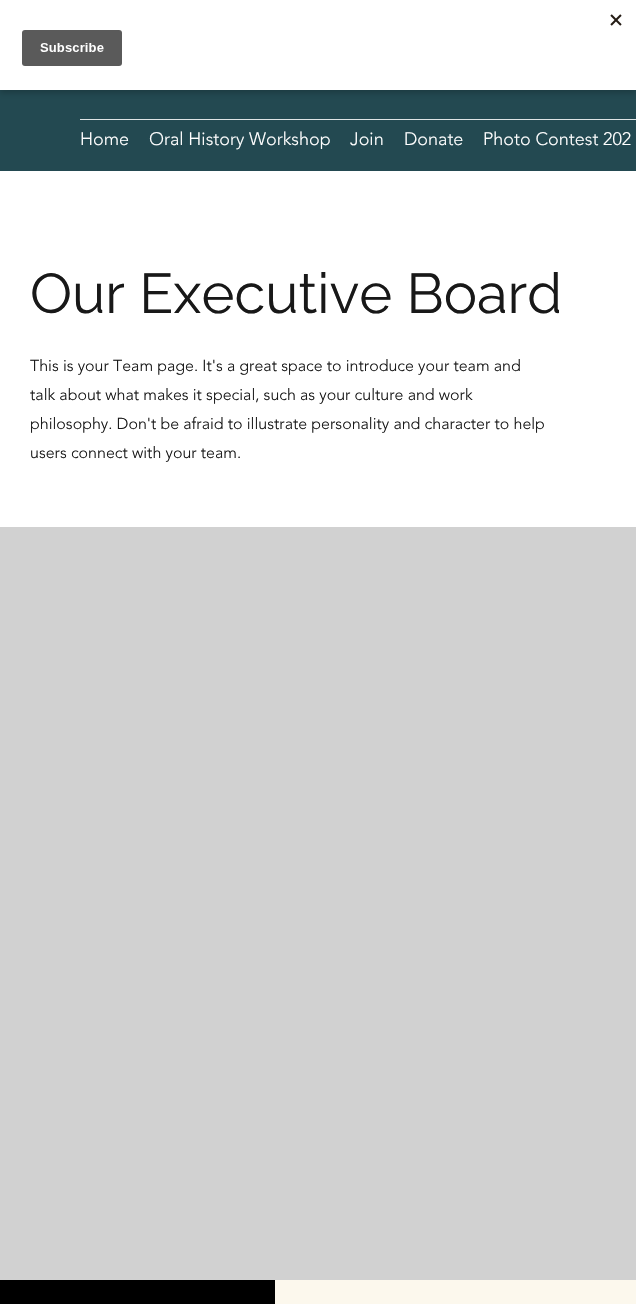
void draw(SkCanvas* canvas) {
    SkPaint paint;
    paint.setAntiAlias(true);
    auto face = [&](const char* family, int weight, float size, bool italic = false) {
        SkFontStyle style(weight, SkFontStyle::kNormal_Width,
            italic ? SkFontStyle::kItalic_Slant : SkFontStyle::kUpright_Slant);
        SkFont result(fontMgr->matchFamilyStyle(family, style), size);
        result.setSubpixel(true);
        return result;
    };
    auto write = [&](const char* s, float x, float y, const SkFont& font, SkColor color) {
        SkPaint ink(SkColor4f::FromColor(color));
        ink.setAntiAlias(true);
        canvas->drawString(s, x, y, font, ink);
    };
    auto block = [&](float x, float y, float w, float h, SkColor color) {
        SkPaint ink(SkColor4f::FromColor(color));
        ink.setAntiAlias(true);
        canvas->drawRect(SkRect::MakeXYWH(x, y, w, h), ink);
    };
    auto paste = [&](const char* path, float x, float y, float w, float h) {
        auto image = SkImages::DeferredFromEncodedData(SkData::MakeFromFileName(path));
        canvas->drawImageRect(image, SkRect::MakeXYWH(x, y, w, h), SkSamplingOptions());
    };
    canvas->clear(SK_ColorWHITE);
    block(0, 90, 636, 81, SkColorSetRGB(35, 73, 81));
    paint.setColor(SkColorSetARGB(51, 0, 0, 0));
    paint.setMaskFilter(SkMaskFilter::MakeBlur(kNormal_SkBlurStyle, 3));
    canvas->drawRect(SkRect::MakeXYWH(0, 3, 636, 90), paint);
    paint.setMaskFilter(nullptr);
    block(0, 0, 636, 90, SK_ColorWHITE);
    paste("pic1.png", 22, 14, 600, 52);
    block(80, 119, 556, 1, SkColorSetRGB(222, 228, 229));
    auto kFont1 = face("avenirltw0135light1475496", 300, 18);
    write("Home", 80, 145, kFont1, SK_ColorWHITE);
    write("Oral History Workshop", 149, 145, kFont1, SK_ColorWHITE);
    write("Join", 350, 145, kFont1, SK_ColorWHITE);
    write("Donate", 404, 145, kFont1, SK_ColorWHITE);
    write("Photo Contest 202", 483, 145, kFont1, SK_ColorWHITE);
    auto kFont2 = face("Raleway", 400, 56);
    write("Our Executive Board", 30, 313, kFont2, SkColorSetRGB(24, 24, 24));
    auto kFont3 = face("avenirltw0135light1475496", 300, 16);
    write("This is your Team page. It's a great space to introduce your team and", 30, 371, kFont3, SkColorSetRGB(24, 24, 24));
    write("talk about what makes it special, such as your culture and work", 30, 400, kFont3, SkColorSetRGB(24, 24, 24));
    write("philosophy. Don't be afraid to illustrate personality and character to help", 30, 429, kFont3, SkColorSetRGB(24, 24, 24));
    write("users connect with your team.", 30, 458, kFont3, SkColorSetRGB(24, 24, 24));
    block(0, 527, 636, 753, SkColorSetRGB(209, 209, 209));
    block(0, 1280, 275, 24, SK_ColorBLACK);
    block(275, 1280, 361, 24, SkColorSetRGB(252, 248, 237));
}
